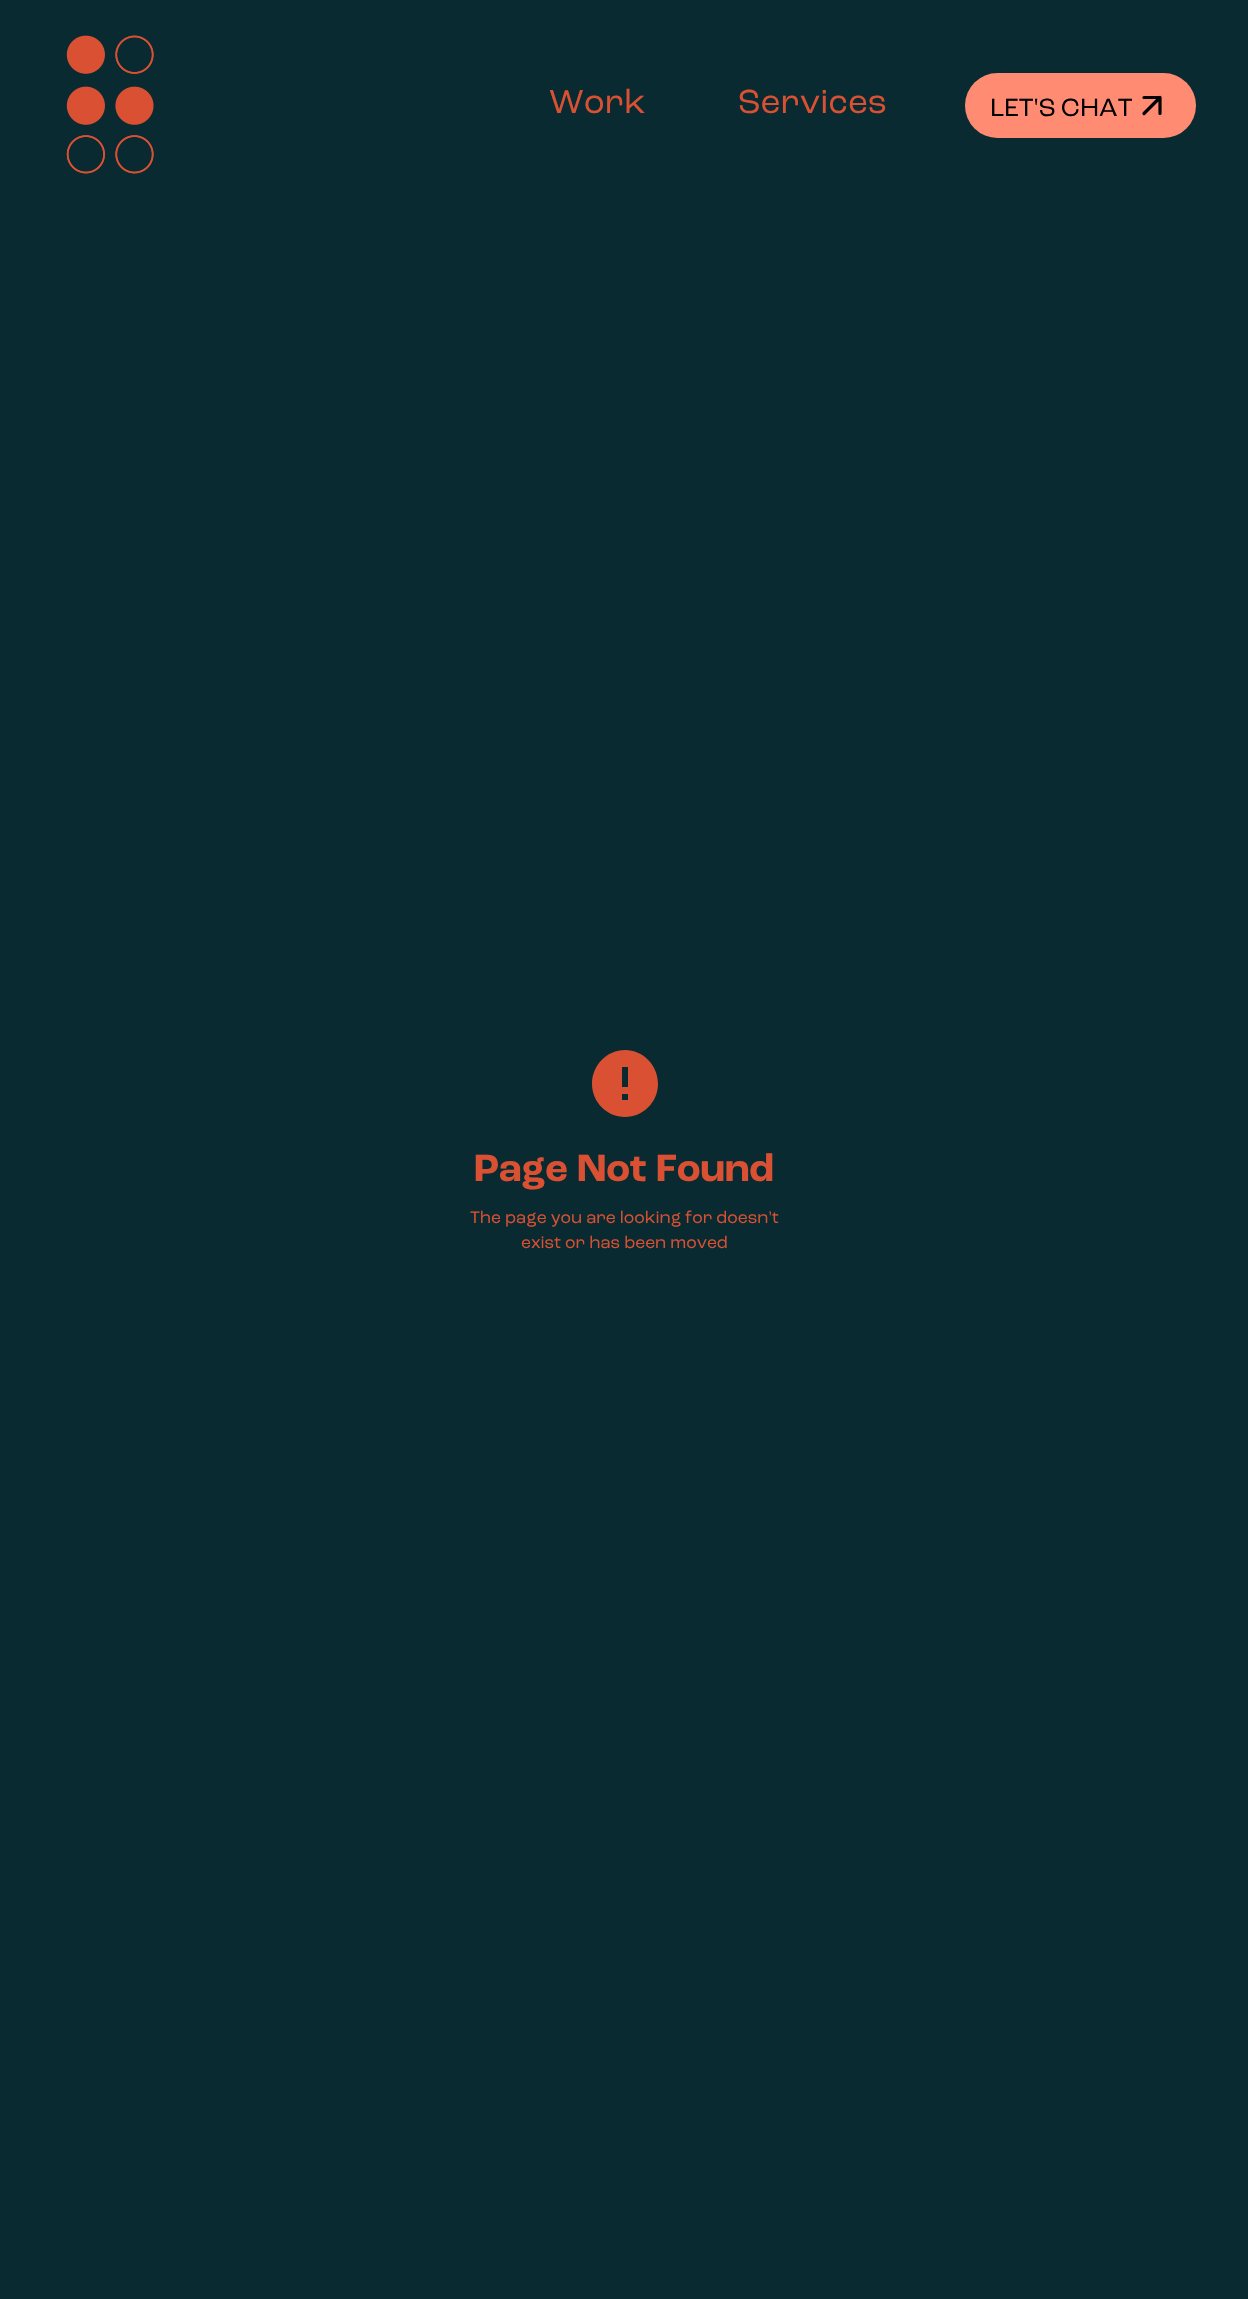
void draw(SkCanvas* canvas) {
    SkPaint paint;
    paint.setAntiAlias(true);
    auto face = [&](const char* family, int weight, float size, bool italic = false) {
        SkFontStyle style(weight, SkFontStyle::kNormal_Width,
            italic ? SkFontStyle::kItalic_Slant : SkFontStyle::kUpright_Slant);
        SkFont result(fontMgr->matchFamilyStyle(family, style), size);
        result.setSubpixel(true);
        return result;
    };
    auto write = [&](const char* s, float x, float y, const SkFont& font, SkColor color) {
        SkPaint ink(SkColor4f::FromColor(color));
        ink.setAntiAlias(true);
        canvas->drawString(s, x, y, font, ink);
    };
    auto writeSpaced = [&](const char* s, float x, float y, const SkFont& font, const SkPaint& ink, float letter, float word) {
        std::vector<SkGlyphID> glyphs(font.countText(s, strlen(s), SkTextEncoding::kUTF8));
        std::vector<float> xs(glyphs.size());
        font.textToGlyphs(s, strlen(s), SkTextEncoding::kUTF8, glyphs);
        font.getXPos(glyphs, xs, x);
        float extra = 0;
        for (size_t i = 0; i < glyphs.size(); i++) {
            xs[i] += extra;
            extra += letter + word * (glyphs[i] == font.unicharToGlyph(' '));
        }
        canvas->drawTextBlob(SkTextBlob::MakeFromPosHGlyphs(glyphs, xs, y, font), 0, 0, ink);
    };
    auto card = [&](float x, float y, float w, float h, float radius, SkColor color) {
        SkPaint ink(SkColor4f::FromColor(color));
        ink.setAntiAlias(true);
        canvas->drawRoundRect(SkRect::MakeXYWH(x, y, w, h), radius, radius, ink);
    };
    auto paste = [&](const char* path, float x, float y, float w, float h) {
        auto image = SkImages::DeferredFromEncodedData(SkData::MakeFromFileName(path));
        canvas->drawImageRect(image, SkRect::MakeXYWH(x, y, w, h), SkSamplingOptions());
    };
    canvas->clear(SkColorSetRGB(9, 42, 49));
    paste("pic1.png", 66, 35, 88, 139);
    auto kFont1 = face("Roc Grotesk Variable", 400, 35);
    write("Work", 549, 113, kFont1, SkColorSetRGB(217, 80, 50));
    write("Services", 738, 113, kFont1, SkColorSetRGB(217, 80, 50));
    card(965, 73, 231, 65, 32.5f, SkColorSetRGB(255, 139, 114));
    auto kFont2 = face("Roc Grotesk Variable", 400, 26.25f);
    paint.setColor(SK_ColorBLACK);
    writeSpaced("LET'S CHAT", 990, 116, kFont2, paint, 0, -1);
    paint.setStyle(SkPaint::kStroke_Style);
    paint.setStrokeWidth(3.2f);
    paint.setStrokeCap(SkPaint::kRound_Cap);
    paint.setStrokeJoin(SkPaint::kRound_Join);
    canvas->drawPath(SkPathBuilder().moveTo(1144, 113.5f).lineTo(1160, 97.5f).moveTo(1160, 97.5f).lineTo(1144, 97.5f).moveTo(1160, 97.5f).lineTo(1160, 113.5f).detach(), paint);
    paint.setStyle(SkPaint::kFill_Style);
    paint.setColor(SkColorSetRGB(217, 80, 50));
    canvas->drawPath(SkPathBuilder().moveTo(625, 1117).cubicTo(607, 1117, 592, 1102, 592, 1084).cubicTo(592, 1065, 607, 1050, 625, 1050).cubicTo(643, 1050, 658, 1065, 658, 1084).cubicTo(658, 1102, 643, 1117, 625, 1117).close().moveTo(622, 1094).lineTo(622, 1100).lineTo(628, 1100).lineTo(628, 1094).close().moveTo(622, 1067).lineTo(622, 1087).lineTo(628, 1087).lineTo(628, 1067).close().detach(), paint);
    auto kFont3 = face("Roc Grotesk Variable", 700, 40);
    write("Page Not Found", 474, 1181, kFont3, SkColorSetRGB(217, 80, 50));
    auto kFont4 = face("Roc Grotesk Variable", 400, 17.5f);
    write("The page you are looking for doesn't", 470, 1223, kFont4, SkColorSetRGB(217, 80, 50));
    write("exist or has been moved", 521, 1248, kFont4, SkColorSetRGB(217, 80, 50));
}
